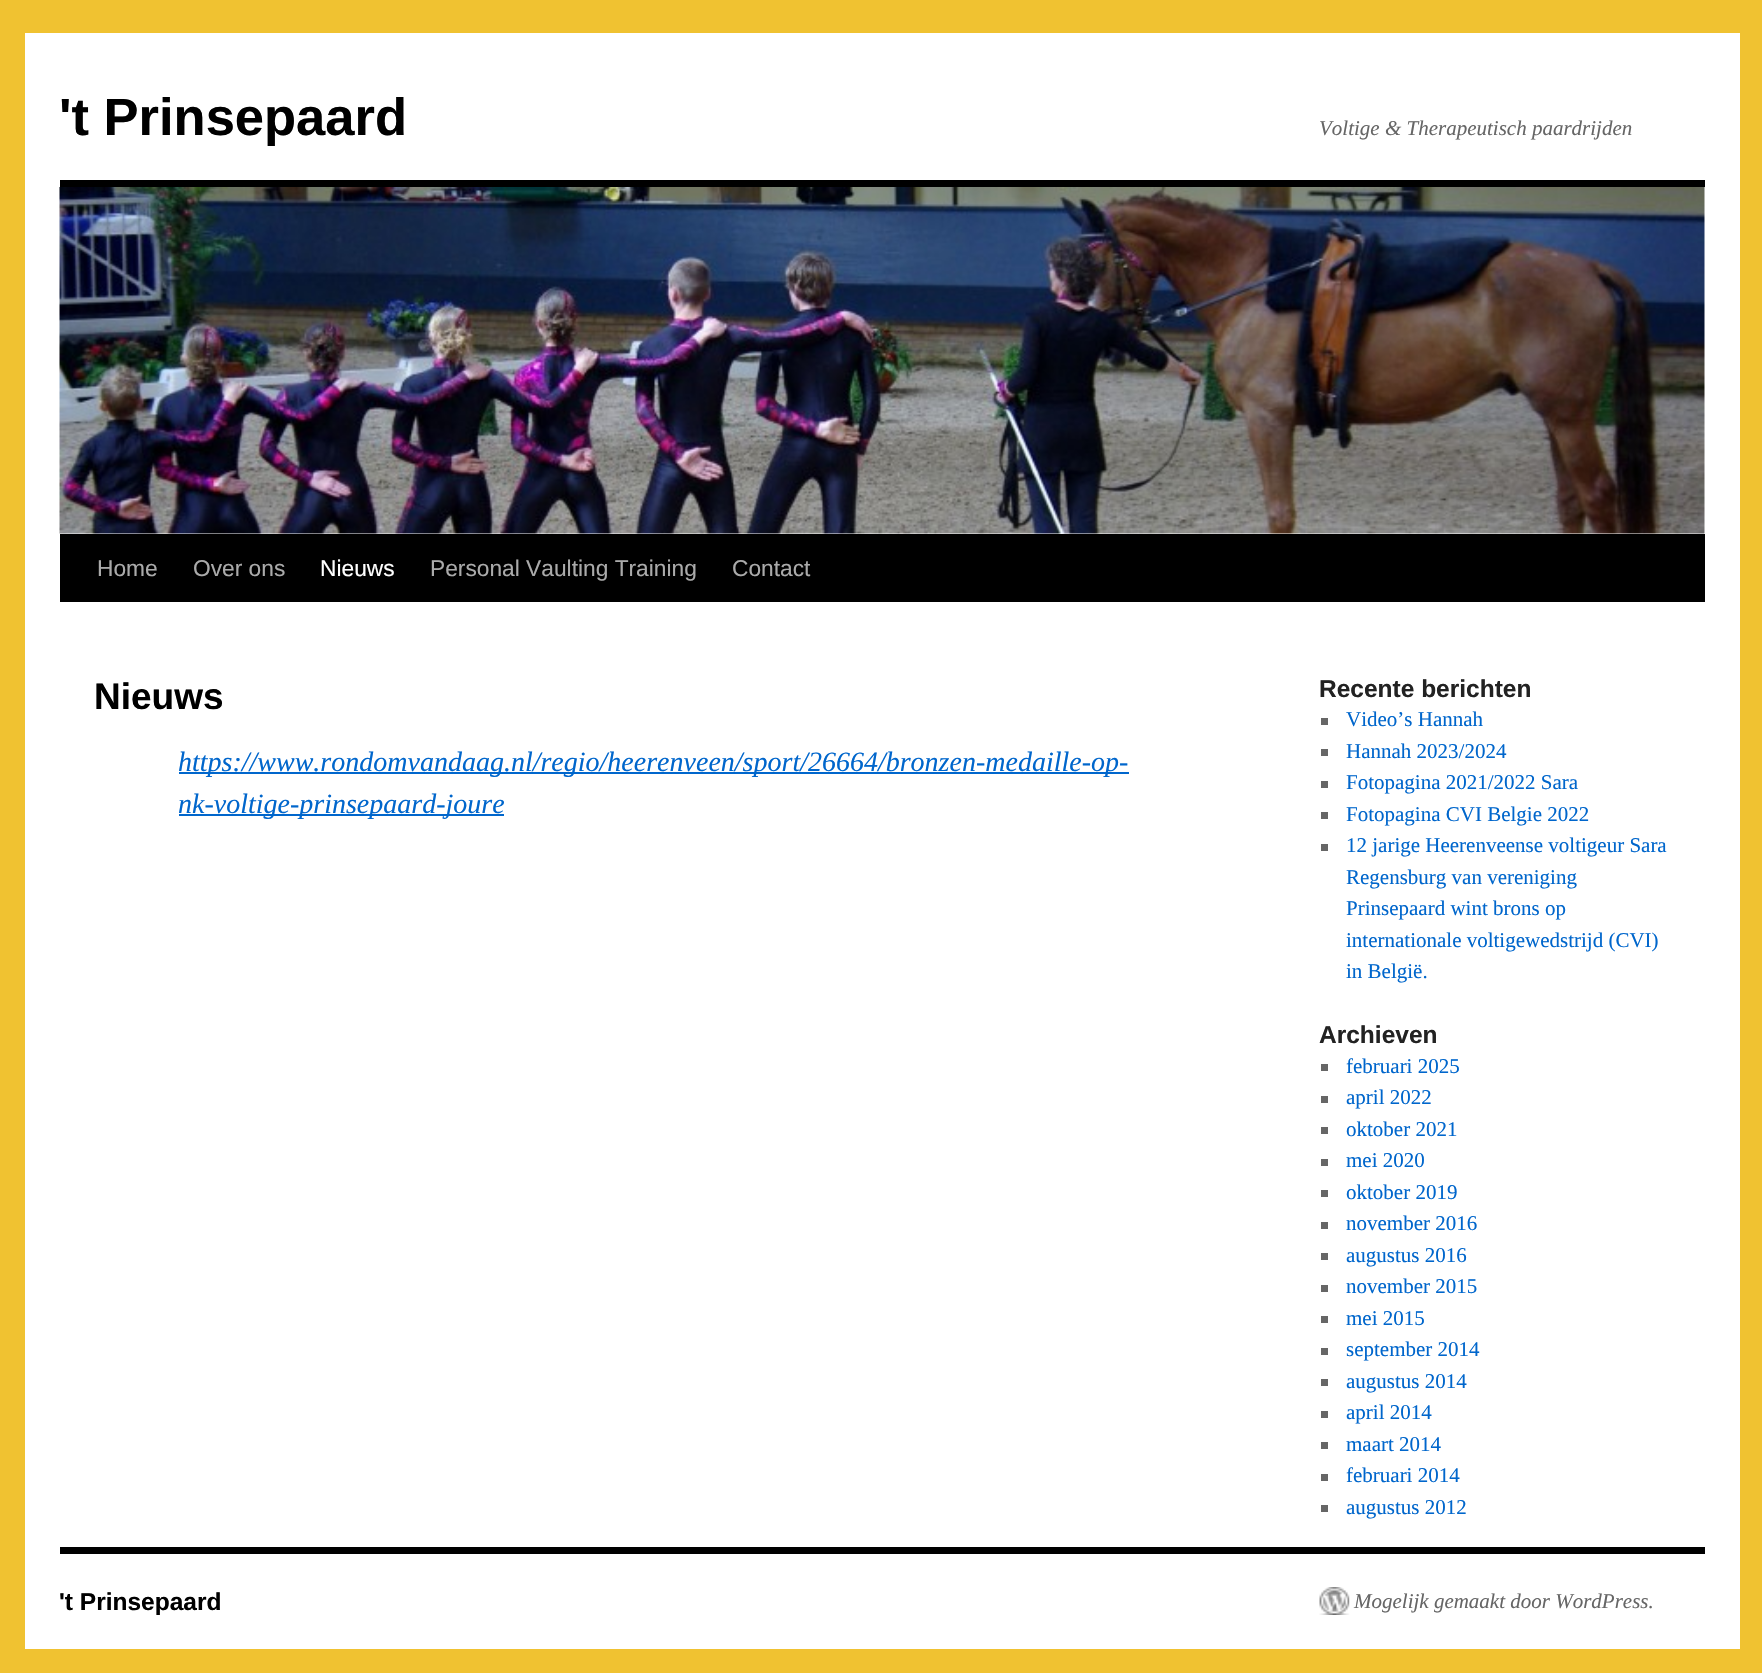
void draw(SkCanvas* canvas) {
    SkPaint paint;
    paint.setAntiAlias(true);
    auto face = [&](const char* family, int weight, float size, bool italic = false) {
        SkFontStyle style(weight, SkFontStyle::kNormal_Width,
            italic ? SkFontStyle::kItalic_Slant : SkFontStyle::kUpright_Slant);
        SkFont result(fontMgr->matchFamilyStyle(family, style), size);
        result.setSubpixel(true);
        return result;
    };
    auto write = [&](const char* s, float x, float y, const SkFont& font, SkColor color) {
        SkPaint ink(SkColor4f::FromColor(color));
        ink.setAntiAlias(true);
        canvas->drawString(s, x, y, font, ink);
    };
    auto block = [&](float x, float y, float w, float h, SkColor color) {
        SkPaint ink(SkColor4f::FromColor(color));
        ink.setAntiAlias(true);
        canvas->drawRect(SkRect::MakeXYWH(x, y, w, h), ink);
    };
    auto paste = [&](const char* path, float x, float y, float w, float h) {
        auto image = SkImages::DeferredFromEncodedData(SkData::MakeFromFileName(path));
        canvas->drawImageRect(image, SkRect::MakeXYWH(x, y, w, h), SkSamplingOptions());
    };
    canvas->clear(SkColorSetRGB(240, 194, 49));
    block(25, 33, 1715, 1616, SK_ColorWHITE);
    auto kFont1 = face("Liberation Sans", 700, 52.5f);
    write("'t Prinsepaard", 59, 135, kFont1, SK_ColorBLACK);
    auto kFont2 = face("Liberation Serif", 400, 21, true);
    write("Voltige & Therapeutisch paardrijden", 1319, 135, kFont2, SkColorSetRGB(102, 102, 102));
    block(60, 180, 1645, 7, SK_ColorBLACK);
    block(60, 534, 1645, 68, SK_ColorBLACK);
    paste("pic1.png", 59, 187, 1646, 347);
    auto kFont3 = face("Liberation Sans", 400, 22.75f);
    write("Home", 97, 576, kFont3, SkColorSetRGB(170, 170, 170));
    write("Over ons", 193, 576, kFont3, SkColorSetRGB(170, 170, 170));
    write("Nieuws", 320, 576, kFont3, SK_ColorWHITE);
    write("Personal Vaulting Training", 430, 576, kFont3, SkColorSetRGB(170, 170, 170));
    write("Contact", 732, 576, kFont3, SkColorSetRGB(170, 170, 170));
    auto kFont4 = face("Liberation Sans", 700, 37);
    write("Nieuws", 94, 709, kFont4, SK_ColorBLACK);
    block(179, 772, 950, 2, SkColorSetRGB(0, 102, 204));
    auto kFont5 = face("Liberation Serif", 400, 28, true);
    write("https://www.rondomvandaag.nl/regio/heerenveen/sport/26664/bronzen-medaille-op-", 178, 771, kFont5, SkColorSetRGB(0, 102, 204));
    block(179, 814, 325, 2, SkColorSetRGB(0, 102, 204));
    write("nk-voltige-prinsepaard-joure", 178, 813, kFont5, SkColorSetRGB(0, 102, 204));
    auto kFont6 = face("Liberation Sans", 700, 24.5f);
    write("Recente berichten", 1319, 697, kFont6, SkColorSetRGB(34, 34, 34));
    block(1321, 718, 7, 7, SkColorSetRGB(102, 102, 102));
    auto kFont7 = face("Liberation Serif", 400, 21);
    write("Video’s Hannah", 1346, 726, kFont7, SkColorSetRGB(0, 102, 204));
    block(1321, 749, 7, 7, SkColorSetRGB(102, 102, 102));
    write("Hannah 2023/2024", 1346, 758, kFont7, SkColorSetRGB(0, 102, 204));
    block(1321, 781, 7, 7, SkColorSetRGB(102, 102, 102));
    write("Fotopagina 2021/2022 Sara", 1346, 789, kFont7, SkColorSetRGB(0, 102, 204));
    block(1321, 812, 7, 7, SkColorSetRGB(102, 102, 102));
    write("Fotopagina CVI Belgie 2022", 1346, 821, kFont7, SkColorSetRGB(0, 102, 204));
    block(1321, 844, 7, 7, SkColorSetRGB(102, 102, 102));
    write("12 jarige Heerenveense voltigeur Sara", 1346, 852, kFont7, SkColorSetRGB(0, 102, 204));
    write("Regensburg van vereniging", 1346, 884, kFont7, SkColorSetRGB(0, 102, 204));
    write("Prinsepaard wint brons op", 1346, 915, kFont7, SkColorSetRGB(0, 102, 204));
    write("internationale voltigewedstrijd (CVI)", 1346, 947, kFont7, SkColorSetRGB(0, 102, 204));
    write("in België.", 1346, 978, kFont7, SkColorSetRGB(0, 102, 204));
    write("Archieven", 1319, 1043, kFont6, SkColorSetRGB(34, 34, 34));
    block(1321, 1064, 7, 7, SkColorSetRGB(102, 102, 102));
    write("februari 2025", 1346, 1073, kFont7, SkColorSetRGB(0, 102, 204));
    block(1321, 1096, 7, 7, SkColorSetRGB(102, 102, 102));
    write("april 2022", 1346, 1104, kFont7, SkColorSetRGB(0, 102, 204));
    block(1321, 1127, 7, 7, SkColorSetRGB(102, 102, 102));
    write("oktober 2021", 1346, 1136, kFont7, SkColorSetRGB(0, 102, 204));
    block(1321, 1159, 7, 7, SkColorSetRGB(102, 102, 102));
    write("mei 2020", 1346, 1167, kFont7, SkColorSetRGB(0, 102, 204));
    block(1321, 1190, 7, 7, SkColorSetRGB(102, 102, 102));
    write("oktober 2019", 1346, 1199, kFont7, SkColorSetRGB(0, 102, 204));
    block(1321, 1222, 7, 7, SkColorSetRGB(102, 102, 102));
    write("november 2016", 1346, 1230, kFont7, SkColorSetRGB(0, 102, 204));
    block(1321, 1253, 7, 7, SkColorSetRGB(102, 102, 102));
    write("augustus 2016", 1346, 1262, kFont7, SkColorSetRGB(0, 102, 204));
    block(1321, 1285, 7, 7, SkColorSetRGB(102, 102, 102));
    write("november 2015", 1346, 1293, kFont7, SkColorSetRGB(0, 102, 204));
    block(1321, 1316, 7, 7, SkColorSetRGB(102, 102, 102));
    write("mei 2015", 1346, 1325, kFont7, SkColorSetRGB(0, 102, 204));
    block(1321, 1348, 7, 7, SkColorSetRGB(102, 102, 102));
    write("september 2014", 1346, 1356, kFont7, SkColorSetRGB(0, 102, 204));
    block(1321, 1379, 7, 7, SkColorSetRGB(102, 102, 102));
    write("augustus 2014", 1346, 1388, kFont7, SkColorSetRGB(0, 102, 204));
    block(1321, 1411, 7, 7, SkColorSetRGB(102, 102, 102));
    write("april 2014", 1346, 1419, kFont7, SkColorSetRGB(0, 102, 204));
    block(1321, 1442, 7, 7, SkColorSetRGB(102, 102, 102));
    write("maart 2014", 1346, 1451, kFont7, SkColorSetRGB(0, 102, 204));
    block(1321, 1474, 7, 7, SkColorSetRGB(102, 102, 102));
    write("februari 2014", 1346, 1482, kFont7, SkColorSetRGB(0, 102, 204));
    block(1321, 1505, 7, 7, SkColorSetRGB(102, 102, 102));
    write("augustus 2012", 1346, 1514, kFont7, SkColorSetRGB(0, 102, 204));
    block(60, 1547, 1645, 7, SK_ColorBLACK);
    write("'t Prinsepaard", 59, 1610, kFont6, SK_ColorBLACK);
    paste("pic2.png", 1319, 1587, 31, 28);
    write("Mogelijk gemaakt door WordPress.", 1354, 1608, kFont2, SkColorSetRGB(102, 102, 102));
}
